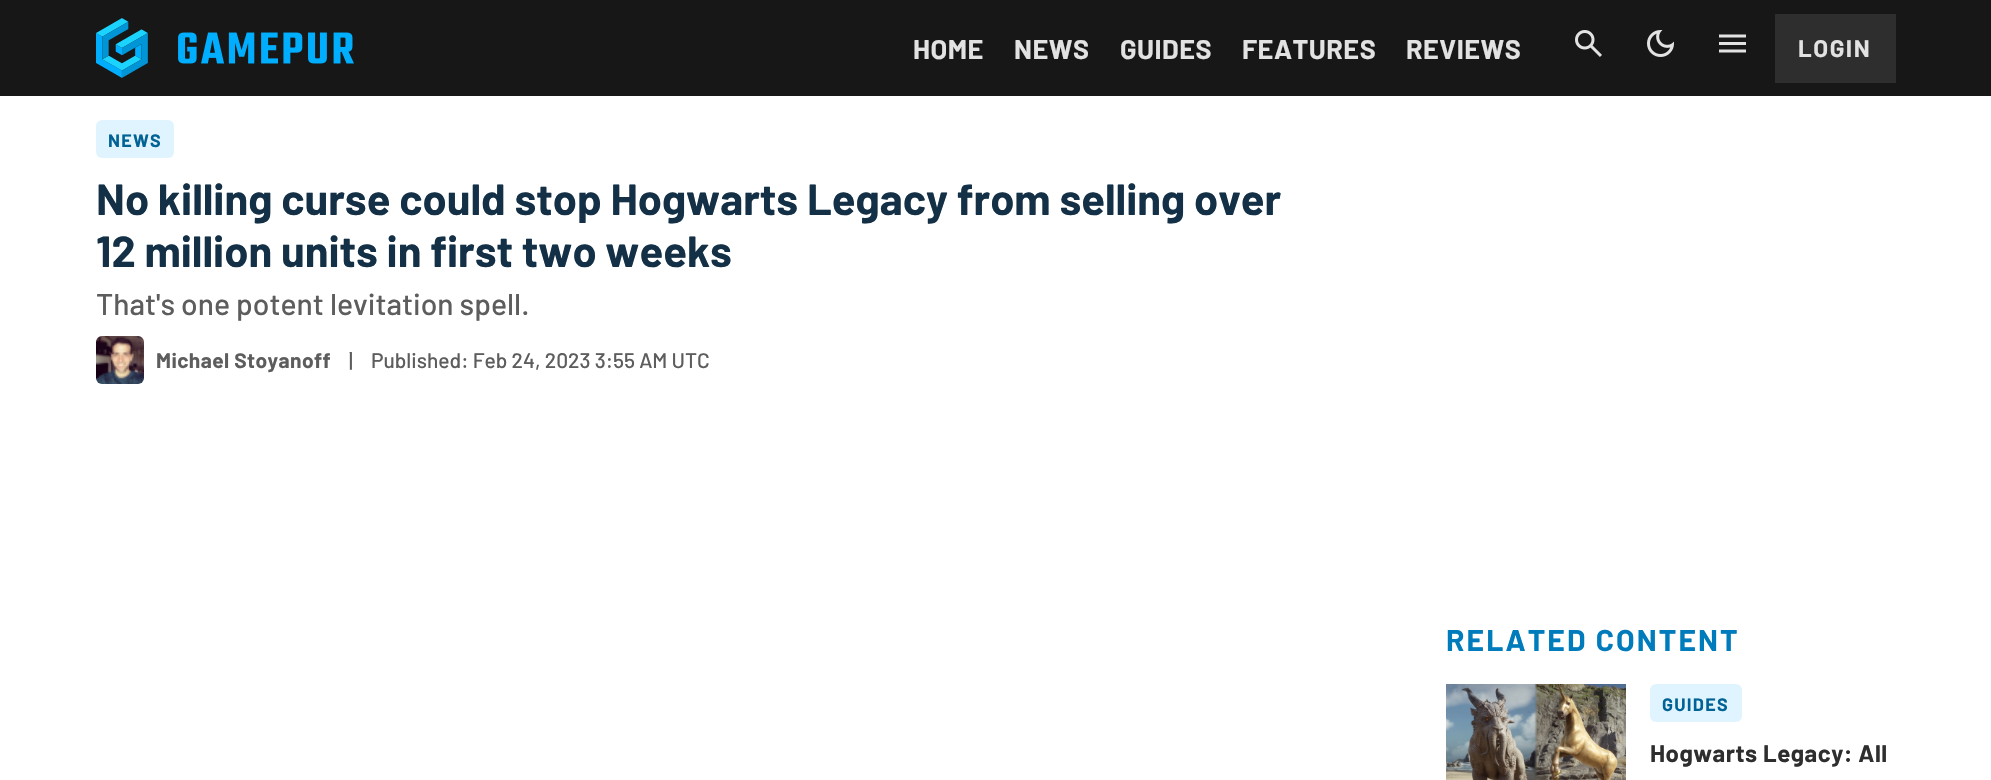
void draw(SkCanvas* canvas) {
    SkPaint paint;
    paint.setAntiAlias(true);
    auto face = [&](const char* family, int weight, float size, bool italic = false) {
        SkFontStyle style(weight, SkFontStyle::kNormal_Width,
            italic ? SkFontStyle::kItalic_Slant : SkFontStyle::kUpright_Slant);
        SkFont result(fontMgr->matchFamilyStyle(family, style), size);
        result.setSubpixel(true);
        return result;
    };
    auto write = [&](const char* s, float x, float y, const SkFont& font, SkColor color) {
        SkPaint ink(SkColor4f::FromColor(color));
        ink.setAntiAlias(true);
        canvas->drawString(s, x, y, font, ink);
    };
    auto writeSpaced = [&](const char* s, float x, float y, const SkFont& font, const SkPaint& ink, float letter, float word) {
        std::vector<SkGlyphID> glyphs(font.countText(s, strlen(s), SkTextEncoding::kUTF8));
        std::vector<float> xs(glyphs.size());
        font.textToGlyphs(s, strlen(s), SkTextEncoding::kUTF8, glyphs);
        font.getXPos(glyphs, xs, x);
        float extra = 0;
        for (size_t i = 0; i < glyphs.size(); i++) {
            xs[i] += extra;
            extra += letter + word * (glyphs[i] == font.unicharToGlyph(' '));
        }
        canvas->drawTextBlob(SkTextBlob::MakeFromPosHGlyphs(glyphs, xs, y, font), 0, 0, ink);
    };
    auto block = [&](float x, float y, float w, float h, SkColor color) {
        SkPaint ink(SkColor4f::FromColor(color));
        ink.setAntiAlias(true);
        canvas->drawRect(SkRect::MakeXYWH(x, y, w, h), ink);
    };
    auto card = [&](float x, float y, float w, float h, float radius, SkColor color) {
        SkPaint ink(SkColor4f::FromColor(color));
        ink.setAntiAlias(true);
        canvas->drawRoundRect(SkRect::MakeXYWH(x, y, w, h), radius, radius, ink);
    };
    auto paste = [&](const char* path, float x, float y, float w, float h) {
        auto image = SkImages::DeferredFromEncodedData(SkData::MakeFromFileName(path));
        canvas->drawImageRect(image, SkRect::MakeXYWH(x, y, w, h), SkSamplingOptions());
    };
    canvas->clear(SK_ColorWHITE);
    block(0, 0, 1991, 96, SkColorSetRGB(23, 23, 23));
    paste("pic1.png", 96, 18, 258, 60);
    auto kFont1 = face("Barlow", 700, 27);
    paint.setColor(SkColorSetRGB(226, 226, 226));
    writeSpaced("HOME", 913, 59, kFont1, paint, 0.5f, 0);
    writeSpaced("NEWS", 1014, 59, kFont1, paint, 0.5f, 0);
    writeSpaced("GUIDES", 1120, 59, kFont1, paint, 0.5f, 0);
    writeSpaced("FEATURES", 1242, 59, kFont1, paint, 0.5f, 0);
    writeSpaced("REVIEWS", 1406, 59, kFont1, paint, 0.5f, 0);
    paste("pic2.png", 1575, 30, 27, 27);
    paste("pic3.png", 1647, 30, 27, 27);
    paste("pic4.png", 1719, 34, 27, 19);
    block(1775, 14, 121, 69, SkColorSetRGB(46, 46, 46));
    auto kFont2 = face("Barlow", 700, 24);
    writeSpaced("LOGIN", 1798, 57, kFont2, paint, 1.5f, 0);
    card(96, 120, 78, 38, 6, SkColorSetRGB(224, 244, 255));
    auto kFont3 = face("Barlow", 700, 18);
    paint.setColor(SkColorSetRGB(0, 98, 149));
    writeSpaced("NEWS", 108, 147, kFont3, paint, 1.25f, 0);
    auto kFont4 = face("Barlow", 700, 43.5f);
    write("No killing curse could stop Hogwarts Legacy from selling over", 96, 215, kFont4, SkColorSetRGB(19, 48, 70));
    write("12 million units in first two weeks", 96, 267, kFont4, SkColorSetRGB(19, 48, 70));
    auto kFont5 = face("Barlow", 500, 30);
    write("That's one potent levitation spell.", 96, 315, kFont5, SkColorSetRGB(93, 93, 93));
    paste("pic5.png", 96, 336, 48, 48);
    auto kFont6 = face("Barlow", 700, 21);
    paint.setColor(SkColorSetRGB(93, 93, 93));
    writeSpaced("Michael Stoyanoff", 156, 368, kFont6, paint, 0.4f, 0);
    auto kFont7 = face("Barlow", 500, 21);
    write("|", 349, 368, kFont7, SkColorSetRGB(93, 93, 93));
    write("Published: Feb 24, 2023 3:55 AM UTC", 371, 368, kFont7, SkColorSetRGB(93, 93, 93));
    auto kFont8 = face("Barlow", 700, 30);
    paint.setColor(SkColorSetRGB(0, 123, 187));
    writeSpaced("RELATED CONTENT", 1446, 651, kFont8, paint, 2.1f, 0);
    paste("pic6.png", 1446, 684, 180, 96);
    card(1650, 684, 92, 38, 6, SkColorSetRGB(224, 244, 255));
    paint.setColor(SkColorSetRGB(0, 98, 149));
    writeSpaced("GUIDES", 1662, 711, kFont3, paint, 1.25f, 0);
    paint.setColor(SkColorSetRGB(46, 46, 46));
    writeSpaced("Hogwarts Legacy: All", 1650, 762, kFont2, paint, 0.5f, 0);
}
